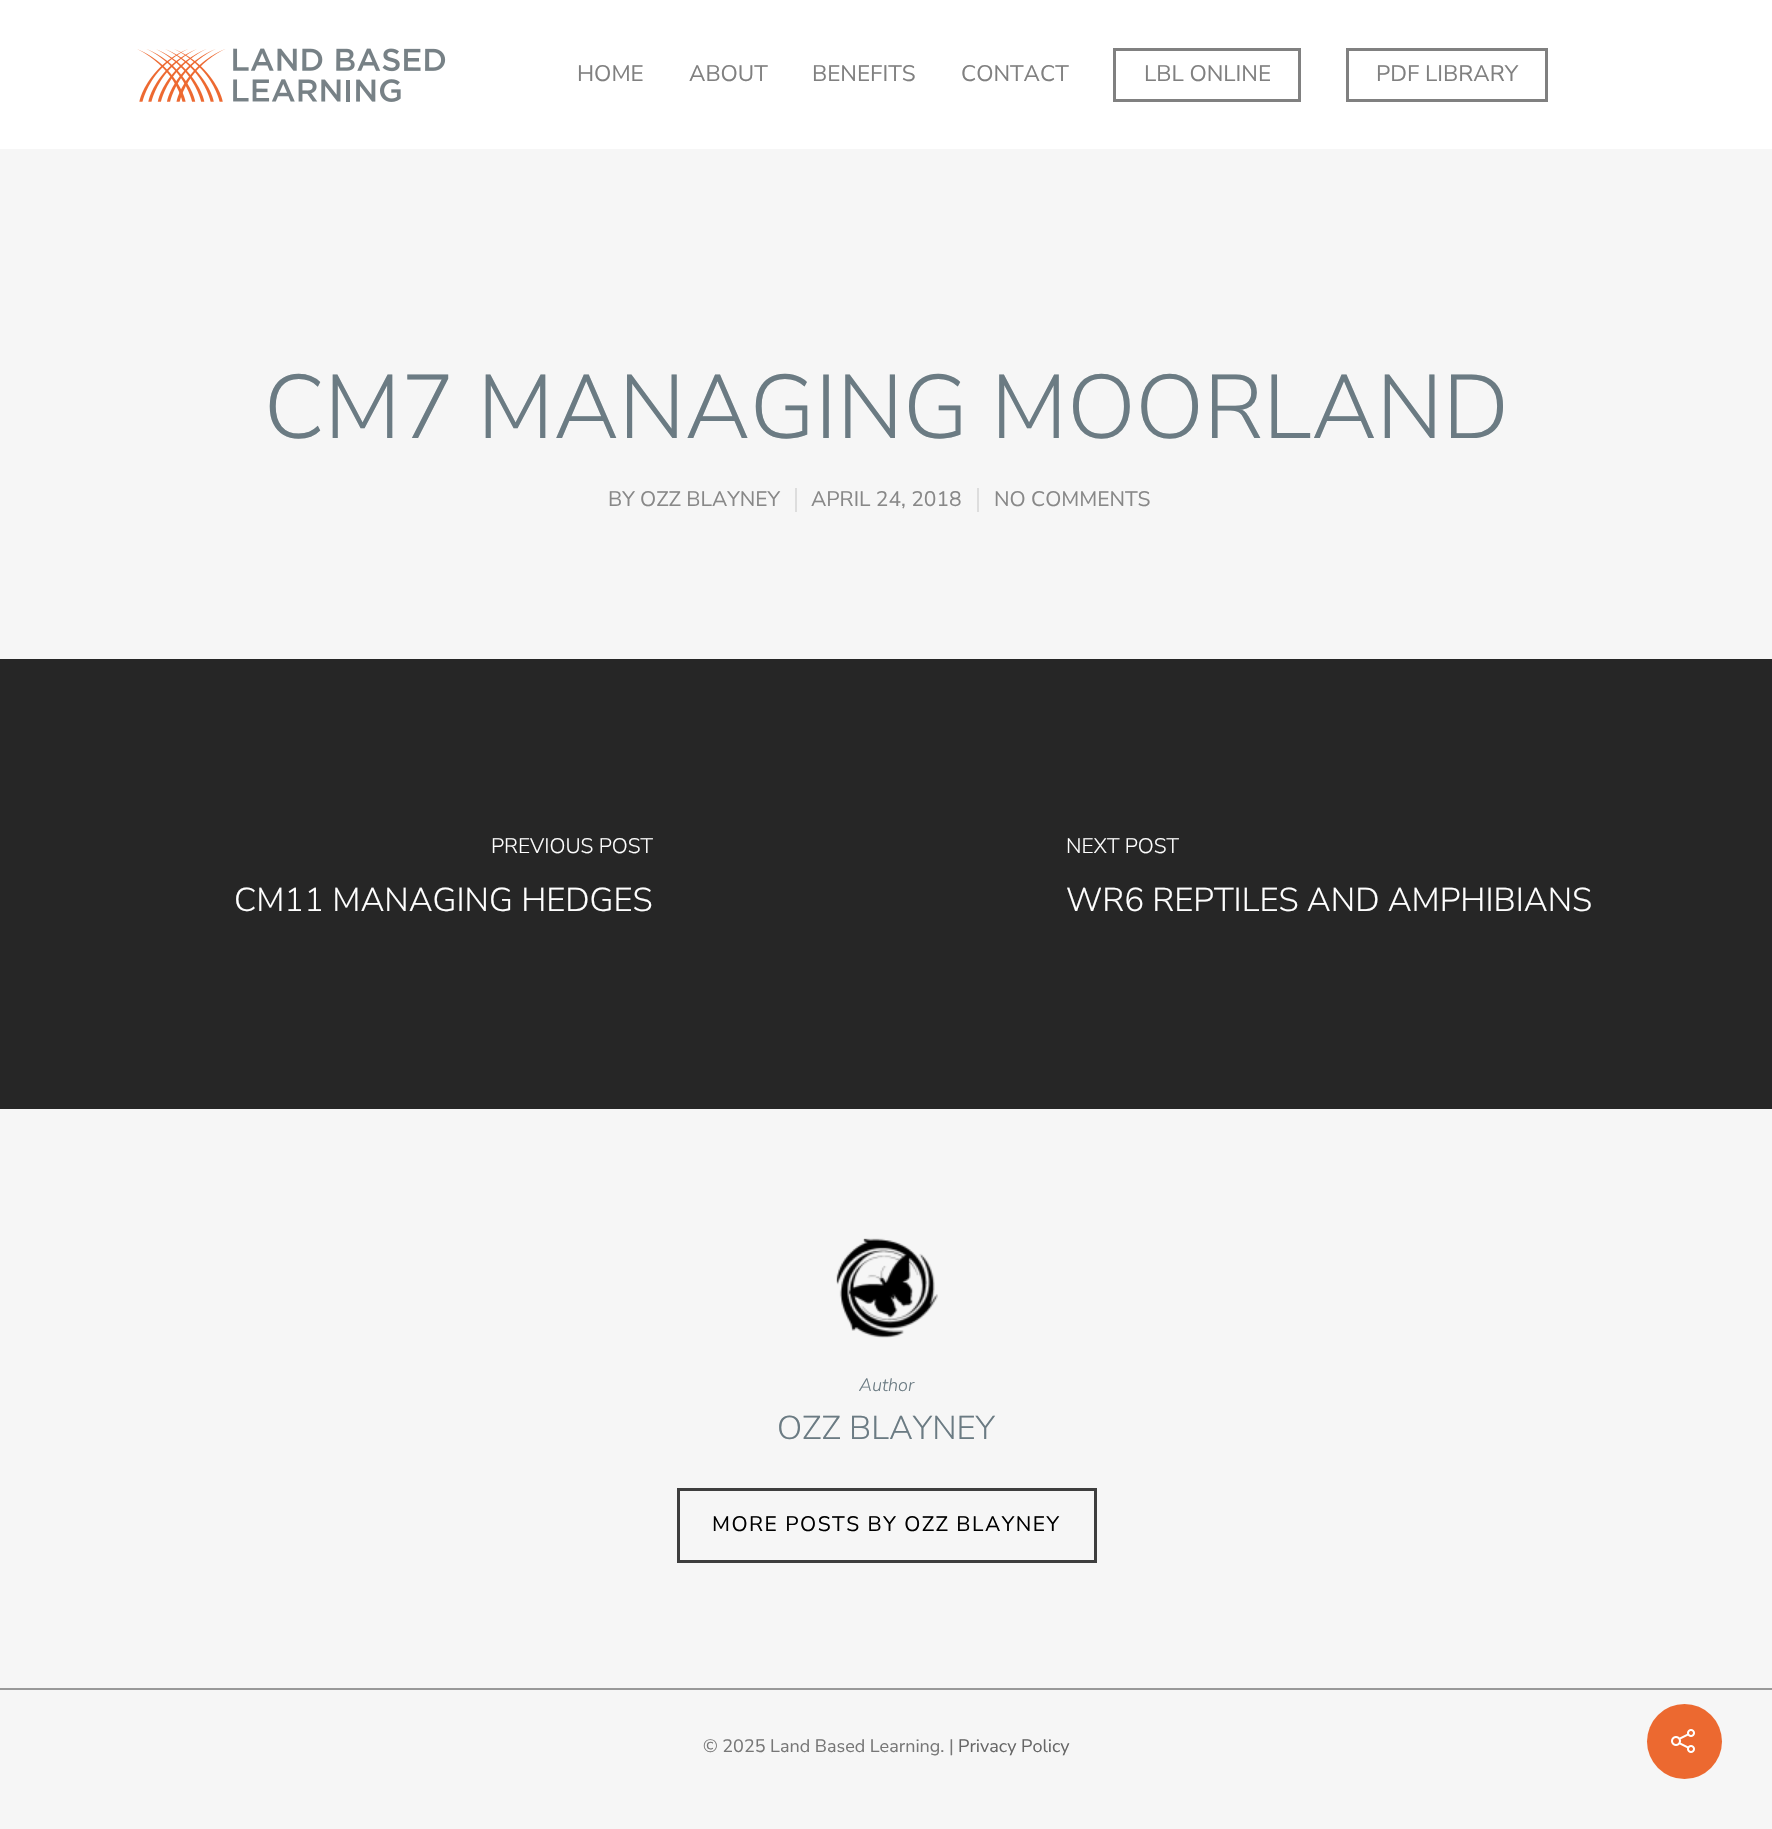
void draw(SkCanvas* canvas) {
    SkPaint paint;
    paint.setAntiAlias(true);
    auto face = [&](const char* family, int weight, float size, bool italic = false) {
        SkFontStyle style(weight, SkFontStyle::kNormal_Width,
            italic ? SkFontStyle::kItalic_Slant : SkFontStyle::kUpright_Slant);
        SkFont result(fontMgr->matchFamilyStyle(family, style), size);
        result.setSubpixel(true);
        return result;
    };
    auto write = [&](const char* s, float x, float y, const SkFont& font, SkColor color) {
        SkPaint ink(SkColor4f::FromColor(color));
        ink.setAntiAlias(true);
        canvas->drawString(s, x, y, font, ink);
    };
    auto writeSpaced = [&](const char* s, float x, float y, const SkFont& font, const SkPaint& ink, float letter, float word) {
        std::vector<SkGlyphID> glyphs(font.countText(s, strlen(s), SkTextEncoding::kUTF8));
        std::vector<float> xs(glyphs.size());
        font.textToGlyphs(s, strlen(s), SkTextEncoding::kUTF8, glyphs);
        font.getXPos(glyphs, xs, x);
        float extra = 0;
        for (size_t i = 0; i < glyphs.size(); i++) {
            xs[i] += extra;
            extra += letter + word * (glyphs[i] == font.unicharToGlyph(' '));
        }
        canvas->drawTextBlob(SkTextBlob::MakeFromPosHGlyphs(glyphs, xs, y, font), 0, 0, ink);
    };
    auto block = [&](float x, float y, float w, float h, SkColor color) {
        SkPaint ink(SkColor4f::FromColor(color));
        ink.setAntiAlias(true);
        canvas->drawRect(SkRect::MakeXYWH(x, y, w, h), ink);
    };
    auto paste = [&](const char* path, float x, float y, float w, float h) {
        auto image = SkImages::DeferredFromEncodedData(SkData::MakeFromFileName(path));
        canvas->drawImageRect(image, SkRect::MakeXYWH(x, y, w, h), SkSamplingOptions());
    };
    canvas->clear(SkColorSetRGB(246, 246, 246));
    block(0, 0, 1772, 149, SK_ColorWHITE);
    paste("pic1.png", 137, 48, 309, 54);
    auto kFont1 = face("Nunito Sans", 400, 22.5f);
    write("HOME", 577, 81, kFont1, SkColorSetRGB(128, 128, 128));
    write("ABOUT", 689, 81, kFont1, SkColorSetRGB(128, 128, 128));
    write("BENEFITS", 812, 81, kFont1, SkColorSetRGB(128, 128, 128));
    write("CONTACT", 961, 81, kFont1, SkColorSetRGB(128, 128, 128));
    paint.setStyle(SkPaint::kStroke_Style);
    paint.setStrokeWidth(3);
    paint.setColor(SkColorSetRGB(128, 128, 128));
    canvas->drawRect(SkRect::MakeXYWH(1114.5f, 49.5f, 185, 51), paint);
    write("LBL ONLINE", 1144, 81, kFont1, SkColorSetRGB(128, 128, 128));
    canvas->drawRect(SkRect::MakeXYWH(1347.5f, 49.5f, 199, 51), paint);
    write("PDF LIBRARY", 1376, 81, kFont1, SkColorSetRGB(128, 128, 128));
    auto kFont2 = face("Nunito Sans", 300, 90);
    write("CM7 MANAGING MOORLAND", 264, 438, kFont2, SkColorSetRGB(107, 123, 131));
    auto kFont3 = face("Nunito Sans", 400, 21);
    write("BY OZZ BLAYNEY", 608, 506, kFont3, SkColorSetRGB(136, 136, 136));
    block(795, 488, 2, 24, SkColorSetRGB(221, 221, 221));
    write("APRIL 24, 2018", 811, 506, kFont3, SkColorSetRGB(136, 136, 136));
    block(977, 488, 2, 24, SkColorSetRGB(221, 221, 221));
    write("NO COMMENTS", 994, 506, kFont3, SkColorSetRGB(136, 136, 136));
    block(0, 659, 1772, 450, SkColorSetRGB(38, 38, 38));
    auto kFont4 = face("Nunito Sans", 300, 21);
    write("PREVIOUS POST", 491, 853, kFont4, SK_ColorWHITE);
    auto kFont5 = face("Nunito Sans", 300, 33.1f);
    write("CM11 MANAGING HEDGES", 234, 911, kFont5, SK_ColorWHITE);
    write("NEXT POST", 1066, 853, kFont4, SK_ColorWHITE);
    write("WR6 REPTILES AND AMPHIBIANS", 1066, 911, kFont5, SK_ColorWHITE);
    paste("pic2.png", 836, 1238, 102, 100);
    auto kFont6 = face("Nunito", 200, 18, true);
    write("Author", 859, 1391, kFont6, SkColorSetRGB(107, 123, 131));
    write("OZZ BLAYNEY", 777, 1439, kFont5, SkColorSetRGB(107, 123, 131));
    paint.setColor(SkColorSetRGB(62, 62, 62));
    canvas->drawRect(SkRect::MakeXYWH(678.5f, 1489.5f, 417, 72), paint);
    paint.setStyle(SkPaint::kFill_Style);
    paint.setColor(SK_ColorBLACK);
    writeSpaced("MORE POSTS BY OZZ BLAYNEY", 712, 1531, kFont3, paint, 1.5f, 0);
    block(0, 1688, 1772, 2, SkColorSetRGB(153, 153, 153));
    auto kFont7 = face("Nunito Sans", 400, 18);
    write("© 2025 Land Based Learning. |", 703, 1752, kFont7, SkColorSetRGB(119, 119, 119));
    write("Privacy Policy", 958, 1752, kFont7, SkColorSetRGB(102, 102, 102));
    paint.setColor(SkColorSetRGB(236, 105, 48));
    canvas->drawCircle(1684.5f, 1741.5f, 37.5f, paint);
    paste("pic3.png", 1671, 1729, 24, 24);
}
